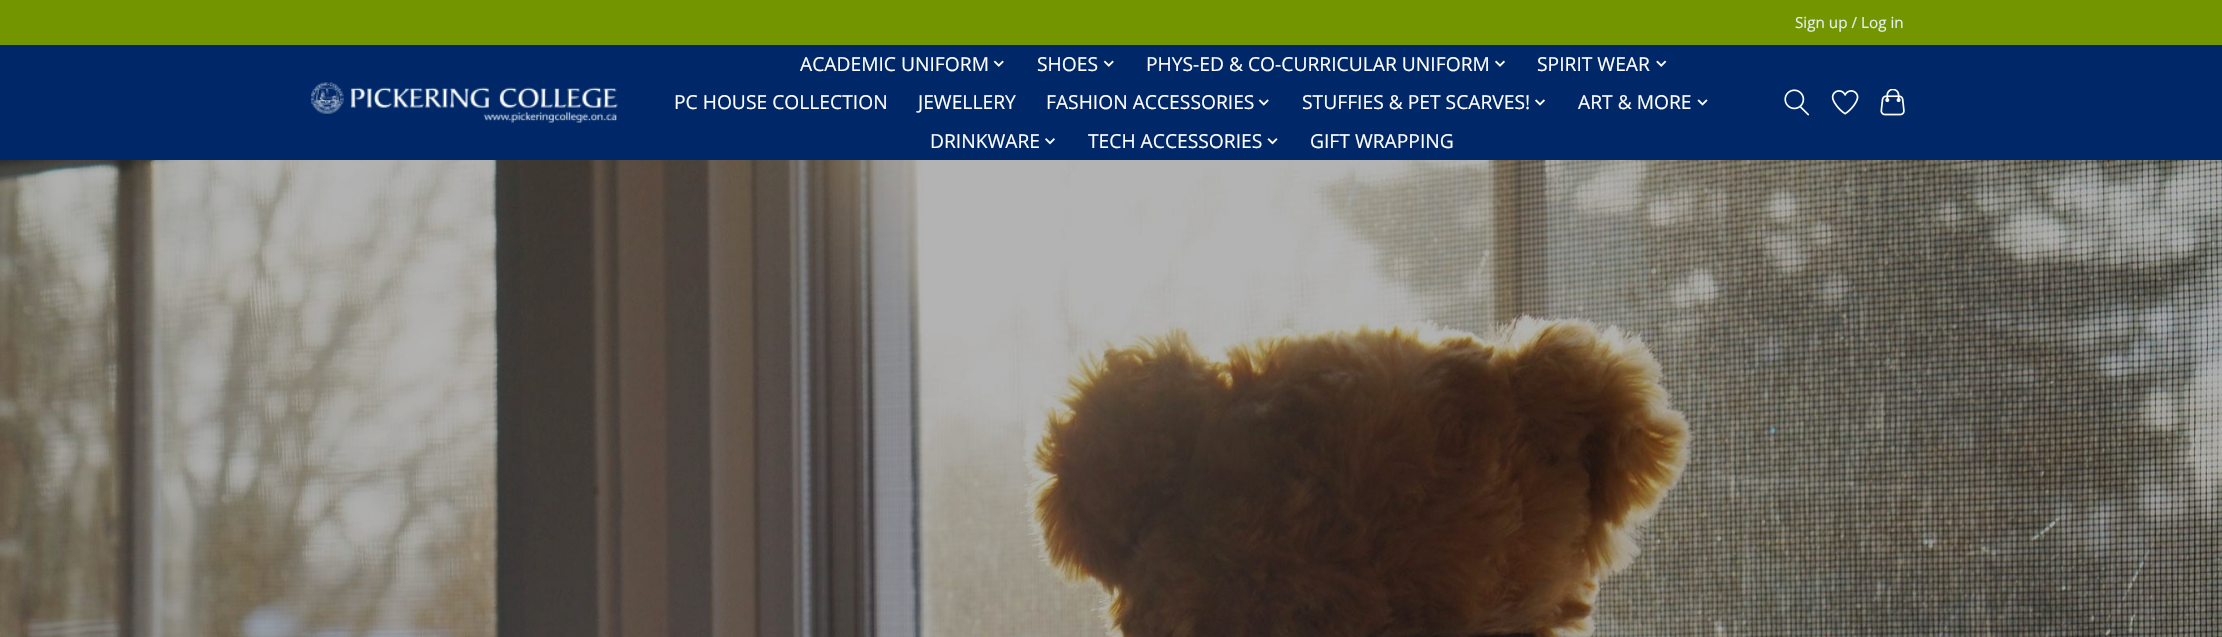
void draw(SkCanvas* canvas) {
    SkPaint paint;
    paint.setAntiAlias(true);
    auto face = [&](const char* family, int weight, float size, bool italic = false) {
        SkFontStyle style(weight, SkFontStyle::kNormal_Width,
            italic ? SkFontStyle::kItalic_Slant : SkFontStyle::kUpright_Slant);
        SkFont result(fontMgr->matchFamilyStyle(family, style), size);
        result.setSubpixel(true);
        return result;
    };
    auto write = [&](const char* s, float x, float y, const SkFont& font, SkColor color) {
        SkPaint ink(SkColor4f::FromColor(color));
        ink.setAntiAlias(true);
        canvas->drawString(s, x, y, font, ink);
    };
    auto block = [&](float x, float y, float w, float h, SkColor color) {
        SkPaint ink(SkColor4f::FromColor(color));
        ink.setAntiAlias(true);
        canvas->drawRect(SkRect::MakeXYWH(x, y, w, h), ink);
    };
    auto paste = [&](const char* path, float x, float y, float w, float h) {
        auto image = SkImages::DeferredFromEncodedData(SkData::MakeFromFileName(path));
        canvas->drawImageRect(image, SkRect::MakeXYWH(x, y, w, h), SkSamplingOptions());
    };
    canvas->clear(SK_ColorWHITE);
    block(0, 45, 2222, 115, SkColorSetRGB(0, 40, 104));
    block(0, 0, 2222, 45, SkColorSetRGB(115, 150, 0));
    auto kFont1 = face("Open Sans", 400, 15.25f);
    write("Sign up / Log in", 1795, 28, kFont1, SkColorSetRGB(227, 239, 240));
    paste("pic1.png", 311, 82, 307, 41);
    auto kFont2 = face("Open Sans", 400, 19.25f);
    write("ACADEMIC UNIFORM", 800, 71, kFont2, SK_ColorWHITE);
    paste("pic2.png", 993, 60, 11, 7);
    write("SHOES", 1037, 71, kFont2, SK_ColorWHITE);
    paste("pic2.png", 1103, 60, 11, 7);
    write("PHYS-ED & CO-CURRICULAR UNIFORM", 1146, 71, kFont2, SK_ColorWHITE);
    paste("pic3.png", 1495, 60, 10, 7);
    write("SPIRIT WEAR", 1537, 71, kFont2, SK_ColorWHITE);
    paste("pic4.png", 1656, 60, 11, 7);
    write("PC HOUSE COLLECTION", 674, 109, kFont2, SK_ColorWHITE);
    write("JEWELLERY", 918, 109, kFont2, SK_ColorWHITE);
    write("FASHION ACCESSORIES", 1046, 109, kFont2, SK_ColorWHITE);
    paste("pic5.png", 1258, 99, 11, 7);
    write("STUFFIES & PET SCARVES!", 1302, 109, kFont2, SK_ColorWHITE);
    paste("pic6.png", 1535, 99, 10, 7);
    write("ART & MORE", 1578, 109, kFont2, SK_ColorWHITE);
    paste("pic7.png", 1697, 99, 11, 7);
    write("DRINKWARE", 930, 148, kFont2, SK_ColorWHITE);
    paste("pic8.png", 1045, 138, 10, 7);
    write("TECH ACCESSORIES", 1088, 148, kFont2, SK_ColorWHITE);
    paste("pic9.png", 1267, 138, 11, 7);
    write("GIFT WRAPPING", 1310, 148, kFont2, SK_ColorWHITE);
    paste("pic10.png", 1784, 89, 26, 27);
    paste("pic11.png", 1831, 90, 28, 25);
    paste("pic12.png", 1880, 89, 25, 27);
    paste("pic13.png", 0, 160, 2222, 477);
}
